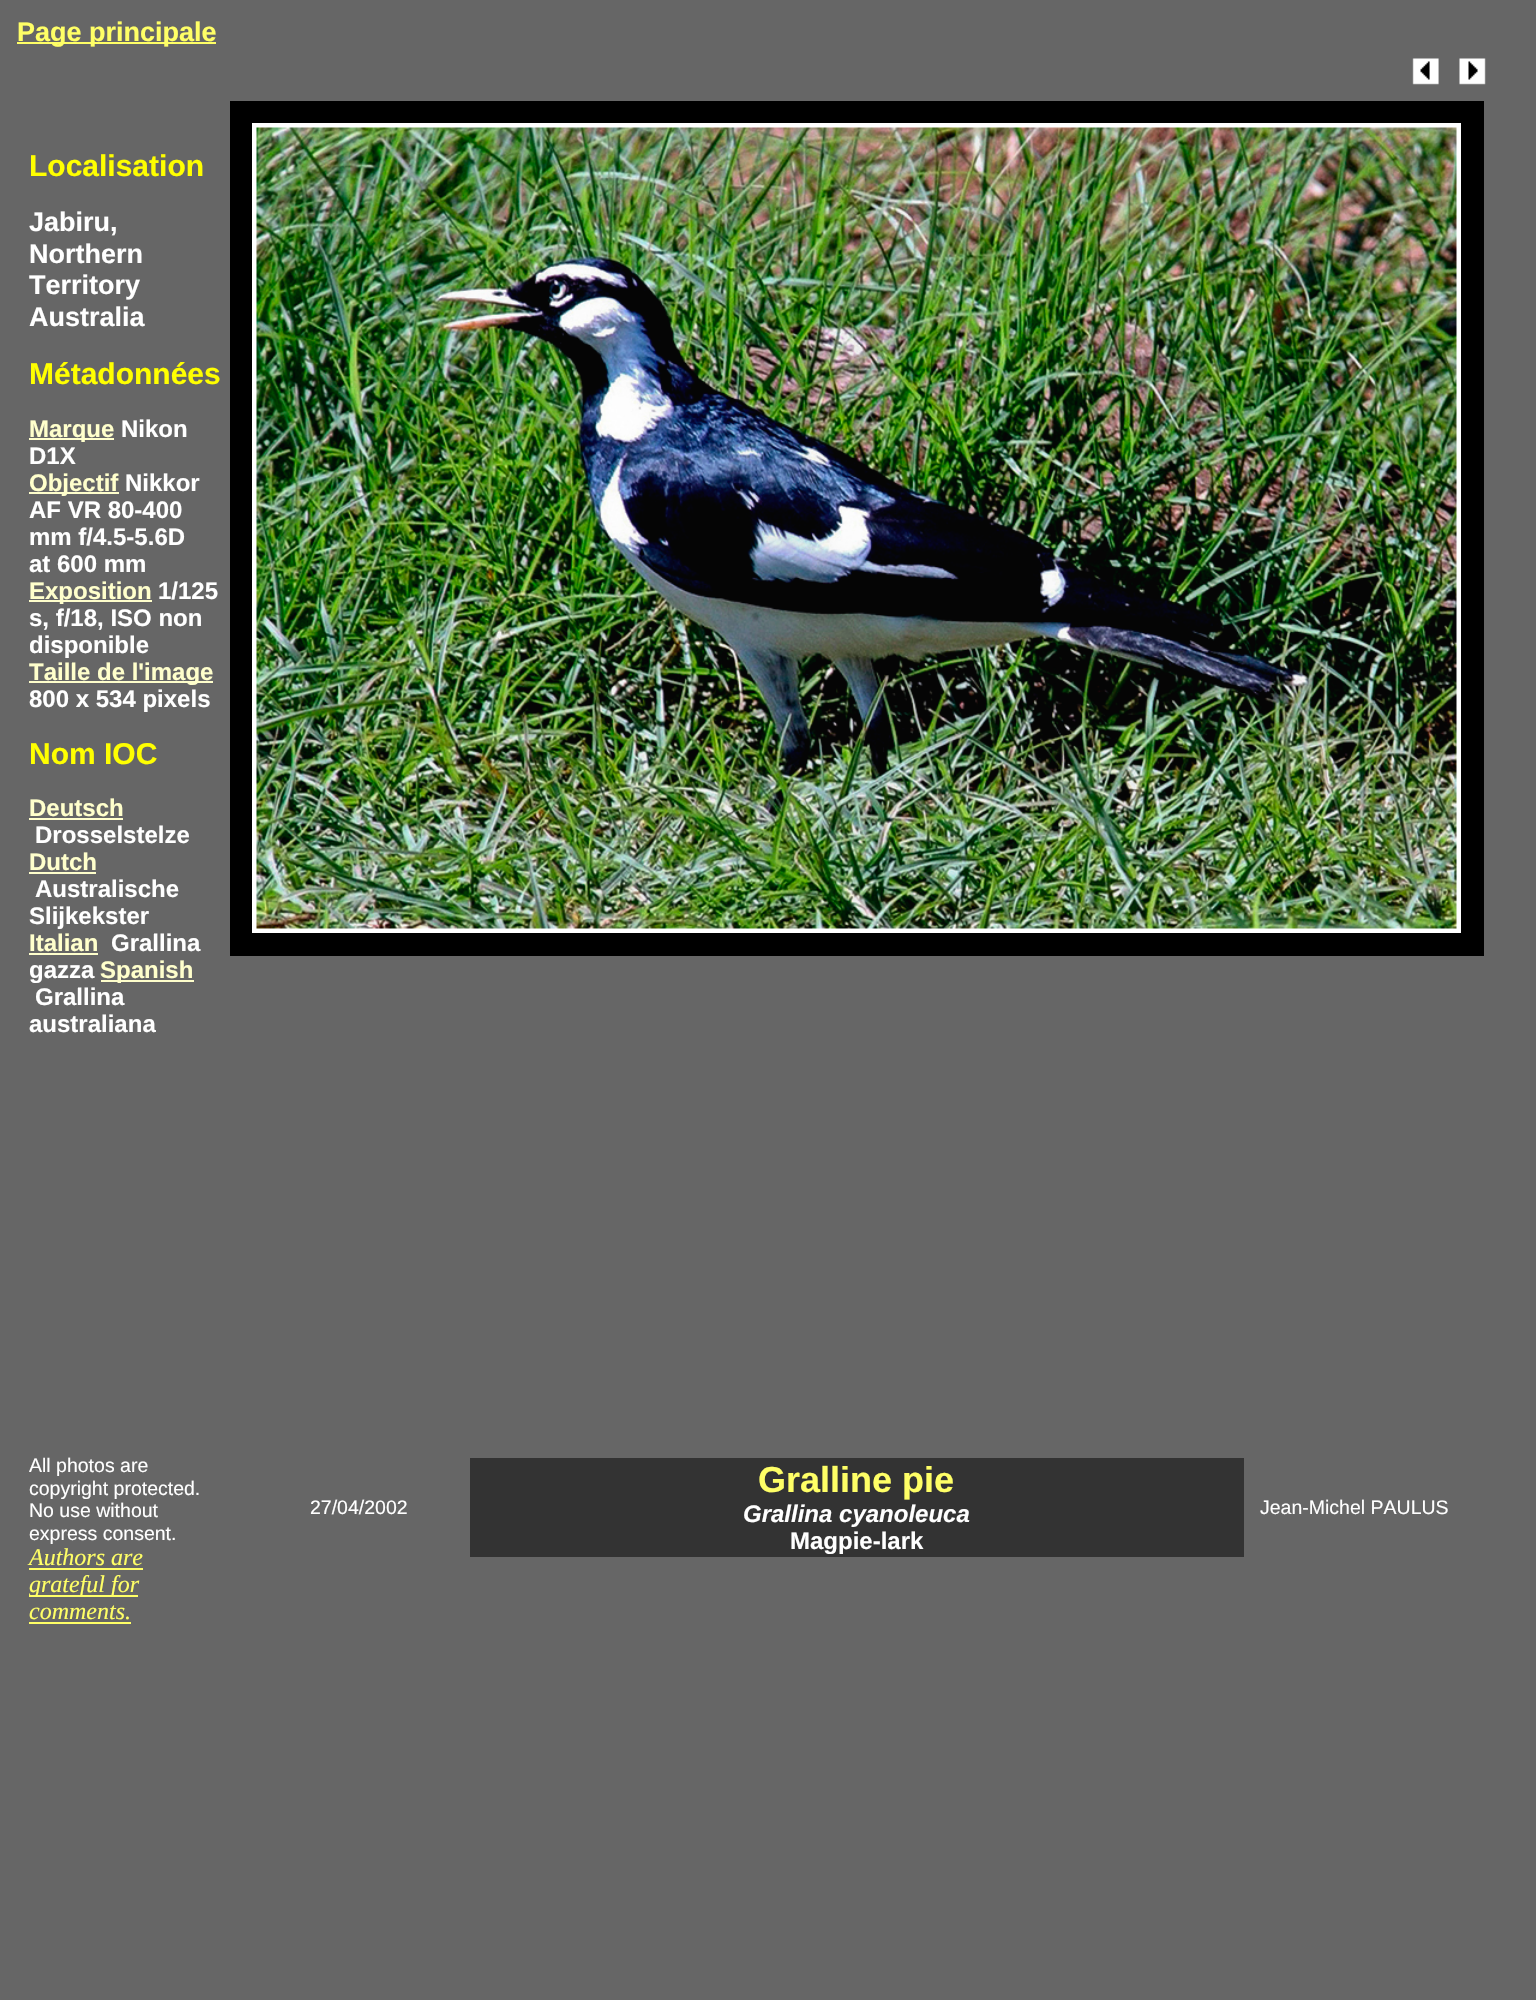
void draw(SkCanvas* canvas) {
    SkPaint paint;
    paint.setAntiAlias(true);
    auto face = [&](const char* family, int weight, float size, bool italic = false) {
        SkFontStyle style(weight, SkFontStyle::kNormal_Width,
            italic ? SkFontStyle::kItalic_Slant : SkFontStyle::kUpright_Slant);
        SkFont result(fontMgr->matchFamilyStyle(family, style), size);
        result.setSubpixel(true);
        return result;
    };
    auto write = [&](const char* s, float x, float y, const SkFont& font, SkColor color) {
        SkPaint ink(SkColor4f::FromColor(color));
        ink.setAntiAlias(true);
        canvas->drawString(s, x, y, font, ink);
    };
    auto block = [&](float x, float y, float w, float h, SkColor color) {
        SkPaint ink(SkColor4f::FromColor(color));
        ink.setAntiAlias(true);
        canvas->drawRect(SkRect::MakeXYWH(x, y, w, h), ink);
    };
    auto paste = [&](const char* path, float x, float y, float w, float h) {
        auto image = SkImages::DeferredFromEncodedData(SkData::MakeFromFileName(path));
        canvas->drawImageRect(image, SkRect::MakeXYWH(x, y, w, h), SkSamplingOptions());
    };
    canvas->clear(SkColorSetRGB(102, 102, 102));
    block(17, 42, 199, 2, SkColorSetRGB(255, 255, 102));
    auto kFont1 = face("Liberation Sans", 700, 27);
    write("Page principale", 17, 41, kFont1, SkColorSetRGB(255, 255, 102));
    paste("pic1.png", 1412, 58, 27, 27);
    paste("pic2.png", 1459, 58, 27, 27);
    auto kFont2 = face("Liberation Sans", 700, 30);
    write("Localisation", 29, 176, kFont2, SkColorSetRGB(255, 255, 0));
    write("Jabiru,", 29, 231, kFont1, SK_ColorWHITE);
    write("Northern", 29, 263, kFont1, SK_ColorWHITE);
    write("Territory", 29, 294, kFont1, SK_ColorWHITE);
    write("Australia", 29, 326, kFont1, SK_ColorWHITE);
    write("Métadonnées", 29, 384, kFont2, SkColorSetRGB(255, 255, 0));
    block(29, 438, 85, 2, SkColorSetRGB(255, 255, 204));
    auto kFont3 = face("Liberation Sans", 700, 24);
    write("Marque", 29, 437, kFont3, SkColorSetRGB(255, 255, 204));
    write("Nikon", 121, 437, kFont3, SK_ColorWHITE);
    write("D1X", 29, 464, kFont3, SK_ColorWHITE);
    block(29, 492, 90, 2, SkColorSetRGB(255, 255, 204));
    write("Objectif", 29, 491, kFont3, SkColorSetRGB(255, 255, 204));
    write("Nikkor", 125, 491, kFont3, SK_ColorWHITE);
    write("AF VR 80-400", 29, 518, kFont3, SK_ColorWHITE);
    write("mm f/4.5-5.6D", 29, 545, kFont3, SK_ColorWHITE);
    write("at 600 mm", 29, 572, kFont3, SK_ColorWHITE);
    block(29, 600, 123, 2, SkColorSetRGB(255, 255, 204));
    write("Exposition", 29, 599, kFont3, SkColorSetRGB(255, 255, 204));
    write("1/125", 158, 599, kFont3, SK_ColorWHITE);
    write("s, f/18, ISO non", 29, 626, kFont3, SK_ColorWHITE);
    write("disponible", 29, 653, kFont3, SK_ColorWHITE);
    block(29, 681, 184, 2, SkColorSetRGB(255, 255, 204));
    write("Taille de l'image", 29, 680, kFont3, SkColorSetRGB(255, 255, 204));
    write("800 x 534 pixels", 29, 707, kFont3, SK_ColorWHITE);
    write("Nom IOC", 29, 764, kFont2, SkColorSetRGB(255, 255, 0));
    write("Deutsch", 29, 816, kFont3, SkColorSetRGB(255, 255, 204));
    block(29, 818, 94, 2, SkColorSetRGB(255, 255, 204));
    write("Drosselstelze", 35, 843, kFont3, SK_ColorWHITE);
    write("Dutch", 29, 870, kFont3, SkColorSetRGB(255, 255, 204));
    block(29, 872, 67, 2, SkColorSetRGB(255, 255, 204));
    write("Australische", 35, 897, kFont3, SK_ColorWHITE);
    write("Slijkekster", 29, 924, kFont3, SK_ColorWHITE);
    write("Italian", 29, 951, kFont3, SkColorSetRGB(255, 255, 204));
    block(29, 953, 69, 2, SkColorSetRGB(255, 255, 204));
    write("Grallina", 111, 951, kFont3, SK_ColorWHITE);
    write("gazza", 29, 978, kFont3, SK_ColorWHITE);
    block(101, 980, 93, 2, SkColorSetRGB(255, 255, 204));
    write("Spanish", 100, 978, kFont3, SkColorSetRGB(255, 255, 204));
    write("Grallina", 35, 1005, kFont3, SK_ColorWHITE);
    write("australiana", 29, 1032, kFont3, SK_ColorWHITE);
    block(230, 101, 1254, 855, SK_ColorBLACK);
    block(252, 123, 1209, 810, SK_ColorWHITE);
    paste("pic3.png", 256, 127, 1201, 802);
    auto kFont4 = face("Liberation Sans", 400, 19.5f);
    write("All photos are", 29, 1472, kFont4, SK_ColorWHITE);
    write("copyright protected.", 29, 1495, kFont4, SK_ColorWHITE);
    write("No use without", 29, 1517, kFont4, SK_ColorWHITE);
    write("express consent.", 29, 1540, kFont4, SK_ColorWHITE);
    auto kFont5 = face("Liberation Serif", 400, 24, true);
    write("Authors are", 29, 1565, kFont5, SkColorSetRGB(255, 255, 102));
    block(29, 1568, 114, 2, SkColorSetRGB(255, 255, 102));
    block(29, 1595, 109, 2, SkColorSetRGB(255, 255, 102));
    write("grateful for", 29, 1592, kFont5, SkColorSetRGB(255, 255, 102));
    write("comments.", 29, 1619, kFont5, SkColorSetRGB(255, 255, 102));
    block(29, 1622, 102, 2, SkColorSetRGB(255, 255, 102));
    write("27/04/2002", 310, 1514, kFont4, SK_ColorWHITE);
    block(470, 1458, 774, 99, SkColorSetRGB(51, 51, 51));
    auto kFont6 = face("Liberation Sans", 700, 36);
    write("Gralline pie", 758, 1492, kFont6, SkColorSetRGB(255, 255, 102));
    auto kFont7 = face("Liberation Sans", 700, 24, true);
    write("Grallina cyanoleuca", 743, 1522, kFont7, SK_ColorWHITE);
    write("Magpie-lark", 790, 1549, kFont3, SK_ColorWHITE);
    write("Jean-Michel PAULUS", 1260, 1514, kFont4, SK_ColorWHITE);
}
